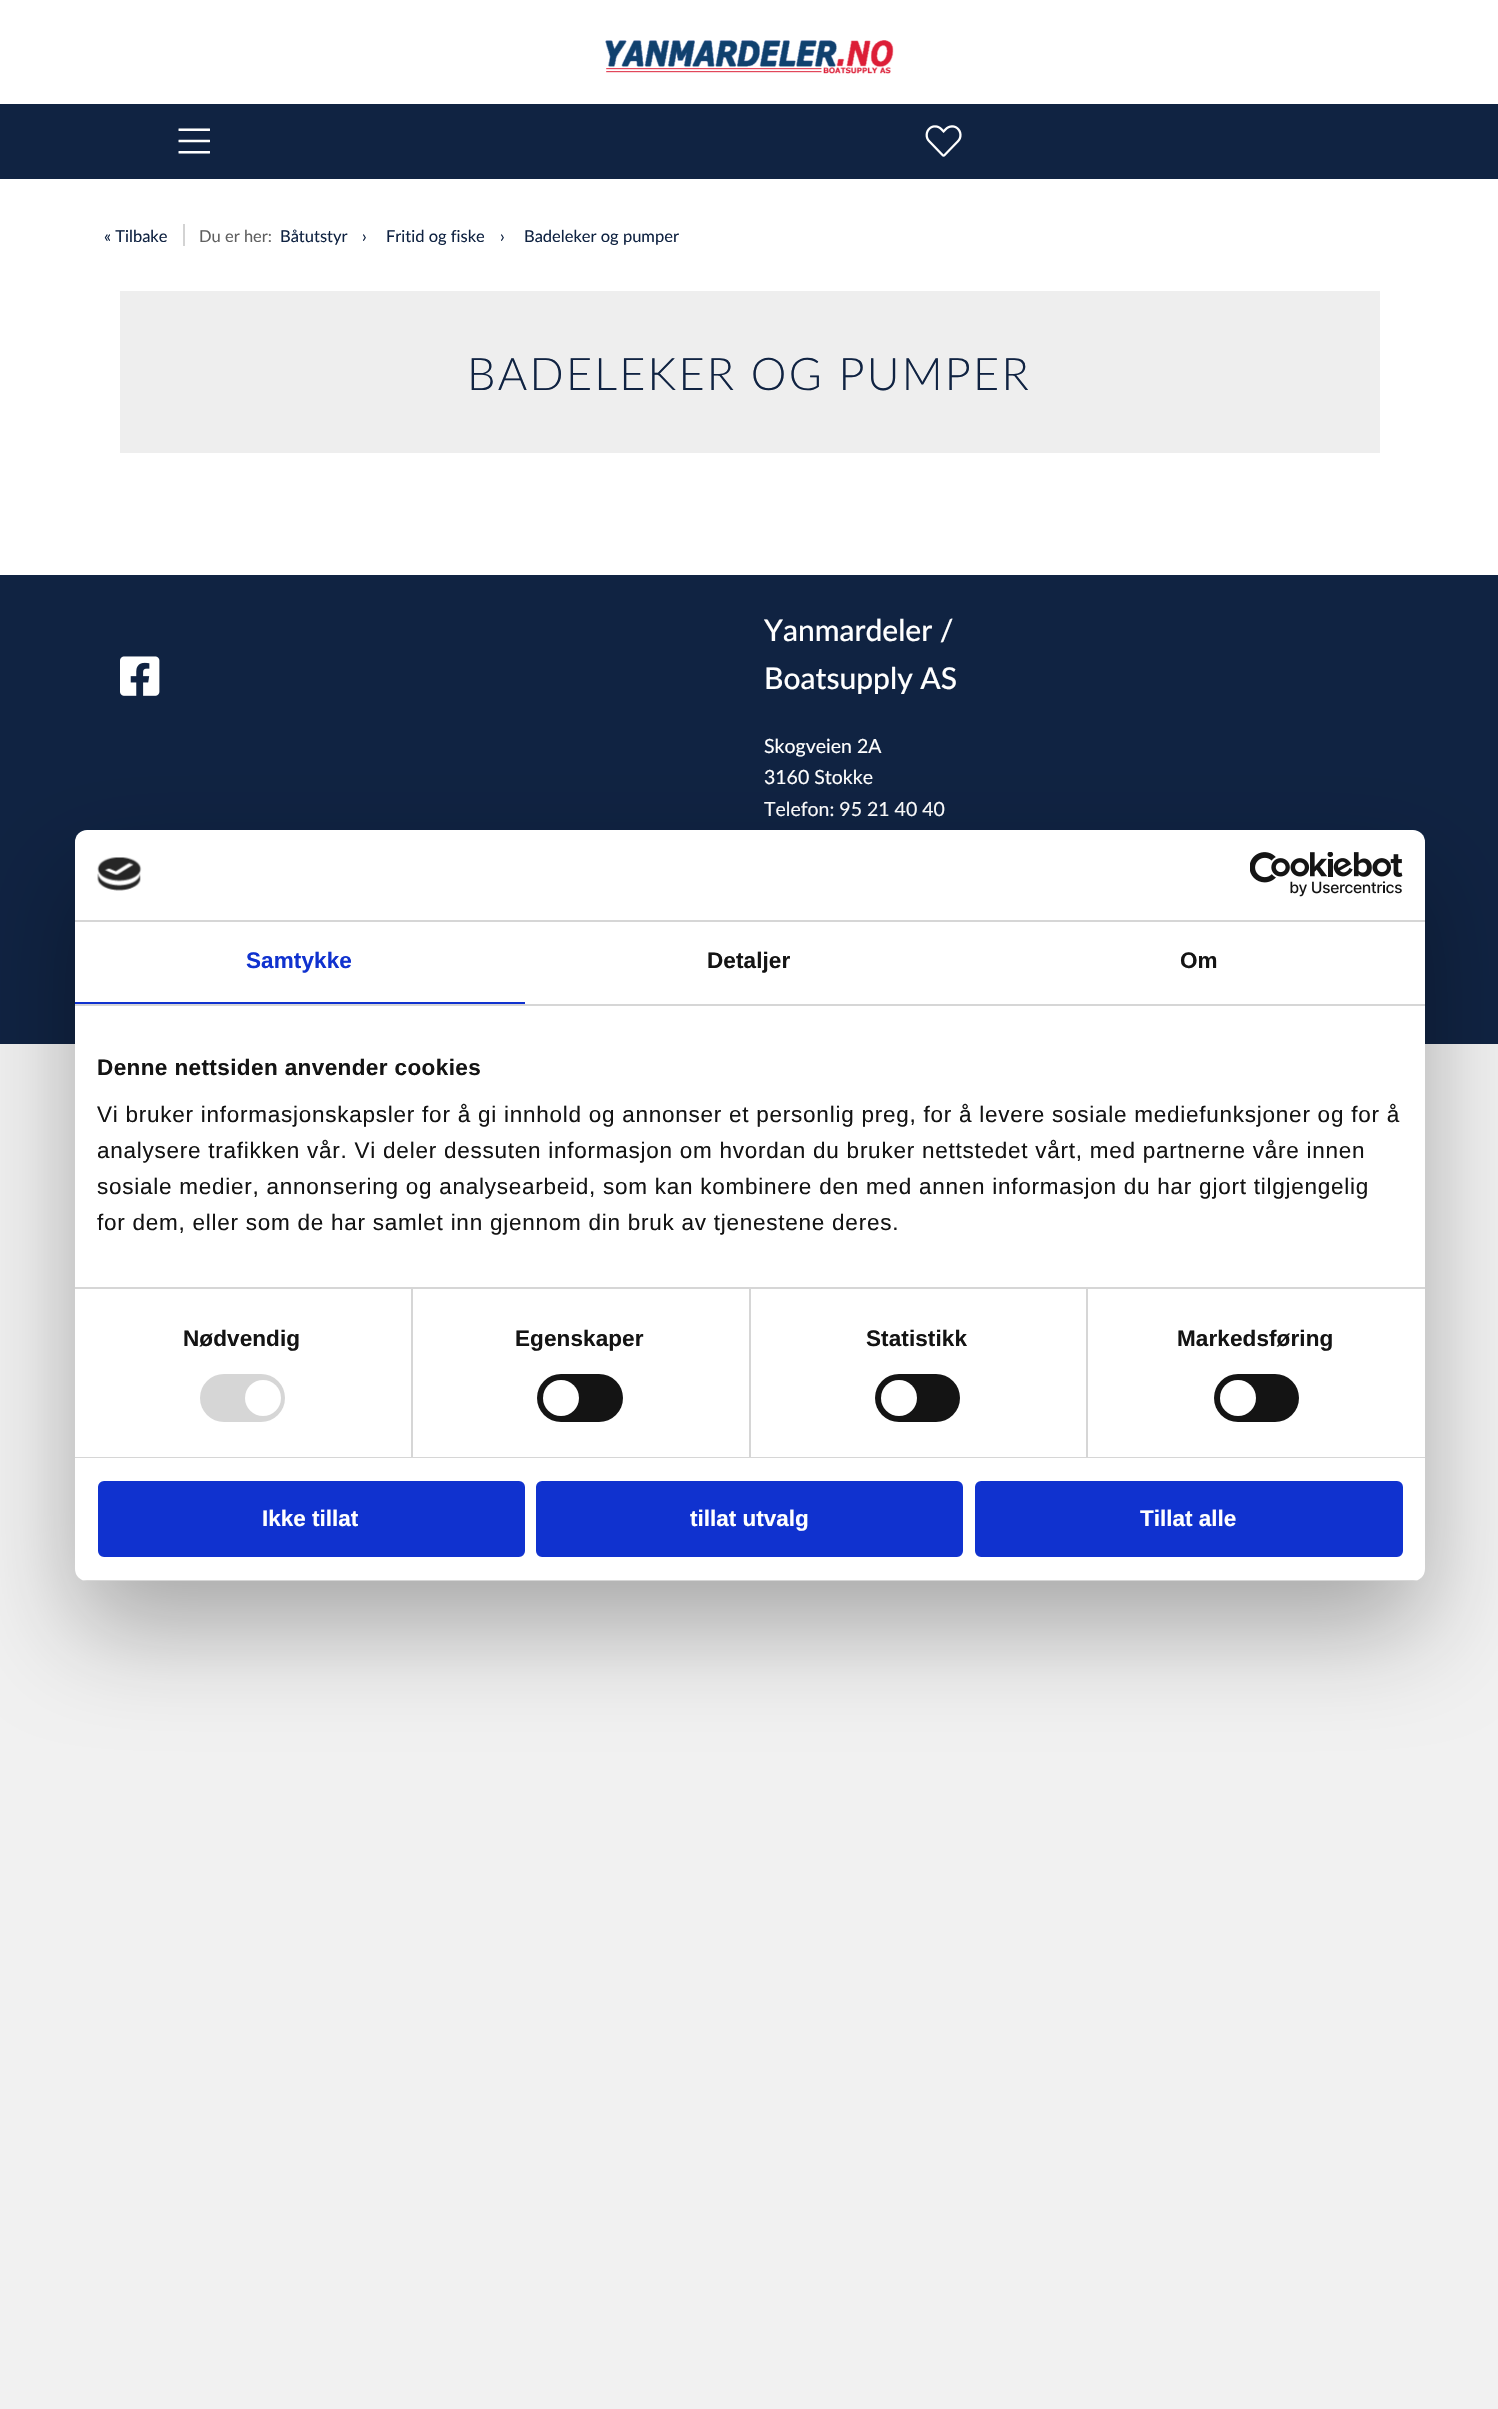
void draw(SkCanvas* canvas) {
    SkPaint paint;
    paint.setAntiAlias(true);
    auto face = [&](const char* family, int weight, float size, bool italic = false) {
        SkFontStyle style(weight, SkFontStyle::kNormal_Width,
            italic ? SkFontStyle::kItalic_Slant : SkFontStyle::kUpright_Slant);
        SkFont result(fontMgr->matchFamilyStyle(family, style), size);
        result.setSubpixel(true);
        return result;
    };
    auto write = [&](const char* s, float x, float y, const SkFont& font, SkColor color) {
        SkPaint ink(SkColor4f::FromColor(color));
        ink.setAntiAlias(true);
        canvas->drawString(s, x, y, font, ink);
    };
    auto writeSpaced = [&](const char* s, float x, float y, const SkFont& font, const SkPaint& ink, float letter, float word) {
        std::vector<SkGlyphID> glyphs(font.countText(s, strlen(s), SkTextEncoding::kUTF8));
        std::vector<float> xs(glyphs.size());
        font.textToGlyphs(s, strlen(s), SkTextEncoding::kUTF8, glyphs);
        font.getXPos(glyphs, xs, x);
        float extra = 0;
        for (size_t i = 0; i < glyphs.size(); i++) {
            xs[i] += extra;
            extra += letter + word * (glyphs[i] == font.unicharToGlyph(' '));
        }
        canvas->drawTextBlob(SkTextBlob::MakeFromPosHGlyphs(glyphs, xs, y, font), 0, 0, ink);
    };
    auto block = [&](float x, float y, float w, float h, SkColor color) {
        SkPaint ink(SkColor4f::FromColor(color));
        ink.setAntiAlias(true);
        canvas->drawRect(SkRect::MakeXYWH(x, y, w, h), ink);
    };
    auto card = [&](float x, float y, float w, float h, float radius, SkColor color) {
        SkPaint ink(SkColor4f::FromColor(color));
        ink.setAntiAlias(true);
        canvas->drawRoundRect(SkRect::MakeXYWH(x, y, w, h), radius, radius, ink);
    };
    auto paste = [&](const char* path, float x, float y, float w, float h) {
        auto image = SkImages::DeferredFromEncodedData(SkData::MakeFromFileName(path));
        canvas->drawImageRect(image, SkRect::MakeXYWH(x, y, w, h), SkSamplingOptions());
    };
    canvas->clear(SkColorSetRGB(241, 241, 241));
    block(0, 0, 1498, 575, SK_ColorWHITE);
    paste("pic1.png", 605, 40, 289, 34);
    block(0, 104, 1498, 75, SkColorSetRGB(16, 35, 66));
    paste("pic2.png", 178, 128, 32, 26);
    paste("pic3.png", 925, 125, 37, 32);
    auto kFont1 = face("Lato", 400, 16.5f);
    write("« Tilbake", 104, 242, kFont1, SkColorSetRGB(16, 35, 66));
    block(183, 224, 2, 22, SkColorSetRGB(211, 211, 211));
    write("Du er her:", 199, 242, kFont1, SkColorSetRGB(96, 96, 96));
    write("Båtutstyr", 280, 242, kFont1, SkColorSetRGB(16, 35, 66));
    write("›", 362, 242, kFont1, SkColorSetRGB(16, 35, 66));
    write("Fritid og fiske", 386, 242, kFont1, SkColorSetRGB(16, 35, 66));
    write("›", 500, 242, kFont1, SkColorSetRGB(16, 35, 66));
    write("Badeleker og pumper", 524, 242, kFont1, SkColorSetRGB(16, 35, 66));
    block(120, 291, 1260, 162, SkColorSetRGB(238, 238, 238));
    auto kFont2 = face("Lato", 300, 45);
    paint.setColor(SkColorSetRGB(16, 35, 66));
    writeSpaced("BADELEKER OG PUMPER", 467, 390, kFont2, paint, 2.25f, 0);
    block(0, 575, 1498, 469, SkColorSetRGB(16, 35, 66));
    paste("pic4.png", 120, 656, 40, 40);
    auto kFont3 = face("Lato", 500, 30);
    write("Yanmardeler /", 764, 641, kFont3, SK_ColorWHITE);
    write("Boatsupply AS", 764, 689, kFont3, SK_ColorWHITE);
    auto kFont4 = face("Lato", 400, 19.5f);
    write("Skogveien 2A", 764, 753, kFont4, SK_ColorWHITE);
    write("3160 Stokke", 764, 784, kFont4, SK_ColorWHITE);
    write("Telefon: 95 21 40 40", 764, 816, kFont4, SK_ColorWHITE);
    paint.setColor(SkColorSetARGB(77, 0, 0, 0));
    paint.setMaskFilter(SkMaskFilter::MakeBlur(kNormal_SkBlurStyle, 51));
    canvas->drawRoundRect(SkRect::MakeXYWH(75, 878, 1350, 751), 12, 12, paint);
    paint.setMaskFilter(nullptr);
    card(75, 830, 1350, 751, 12, SK_ColorWHITE);
    block(75, 920, 1350, 2, SkColorSetRGB(214, 214, 214));
    paste("pic5.png", 97, 857, 45, 34);
    paste("pic6.png", 1250, 852, 153, 45);
    block(75, 1004, 1350, 2, SkColorSetRGB(214, 214, 214));
    block(75, 1002, 450, 2, SkColorSetRGB(16, 50, 207));
    auto kFont5 = face("Liberation Sans", 700, 22.5f);
    paint.setColor(SkColorSetRGB(16, 50, 207));
    writeSpaced("Samtykke", 246, 968, kFont5, paint, 0.1f, 0);
    paint.setColor(SkColorSetRGB(20, 20, 20));
    writeSpaced("Detaljer", 707, 968, kFont5, paint, 0.1f, 0);
    writeSpaced("Om", 1180, 968, kFont5, paint, 0.1f, 0);
    block(75, 1287, 1350, 2, SkColorSetRGB(214, 214, 214));
    writeSpaced("Denne nettsiden anvender cookies", 97, 1075, kFont5, paint, 0.4f, 0);
    auto kFont6 = face("Liberation Sans", 400, 22.5f);
    writeSpaced("Vi bruker informasjonskapsler for å gi innhold og annonser et personlig preg, for å levere sosiale mediefunksjoner og for å", 97, 1122, kFont6, paint, 0.75f, 0);
    writeSpaced("analysere trafikken vår. Vi deler dessuten informasjon om hvordan du bruker nettstedet vårt, med partnerne våre innen", 97, 1158, kFont6, paint, 0.75f, 0);
    writeSpaced("sosiale medier, annonsering og analysearbeid, som kan kombinere den med annen informasjon du har gjort tilgjengelig", 97, 1194, kFont6, paint, 0.75f, 0);
    writeSpaced("for dem, eller som de har samlet inn gjennom din bruk av tjenestene deres.", 97, 1230, kFont6, paint, 0.75f, 0);
    block(75, 1457, 1350, 1, SkColorSetRGB(214, 214, 214));
    block(411, 1289, 2, 168, SkColorSetRGB(214, 214, 214));
    writeSpaced("Nødvendig", 183, 1346, kFont5, paint, 0.1f, 0);
    card(200, 1374, 85, 48, 24, SkColorSetRGB(214, 214, 214));
    paint.setColor(SK_ColorWHITE);
    canvas->drawCircle(263, 1398, 18, paint);
    block(749, 1289, 2, 168, SkColorSetRGB(214, 214, 214));
    paint.setColor(SkColorSetRGB(20, 20, 20));
    writeSpaced("Egenskaper", 515, 1346, kFont5, paint, 0.1f, 0);
    card(537, 1374, 86, 48, 24, SkColorSetRGB(20, 20, 20));
    paint.setColor(SK_ColorWHITE);
    canvas->drawCircle(561, 1398, 18, paint);
    block(1086, 1289, 2, 168, SkColorSetRGB(214, 214, 214));
    paint.setColor(SkColorSetRGB(20, 20, 20));
    writeSpaced("Statistikk", 866, 1346, kFont5, paint, 0.1f, 0);
    card(875, 1374, 85, 48, 24, SkColorSetRGB(20, 20, 20));
    paint.setColor(SK_ColorWHITE);
    canvas->drawCircle(899, 1398, 18, paint);
    paint.setColor(SkColorSetRGB(20, 20, 20));
    writeSpaced("Markedsføring", 1177, 1346, kFont5, paint, 0.1f, 0);
    card(1214, 1374, 85, 48, 24, SkColorSetRGB(20, 20, 20));
    paint.setColor(SK_ColorWHITE);
    canvas->drawCircle(1238, 1398, 18, paint);
    canvas->save();
    canvas->clipPath(SkPathBuilder().moveTo(87, 830).lineTo(1413, 830).cubicTo(1419.5f, 830, 1425, 835.5f, 1425, 842).lineTo(1425, 1569).cubicTo(1425, 1575.5f, 1419.5f, 1581, 1413, 1581).lineTo(87, 1581).cubicTo(80.5f, 1581, 75, 1575.5f, 75, 1569).lineTo(75, 842).cubicTo(75, 835.5f, 80.5f, 830, 87, 830).close().detach(), true);
    block(75, 1580, 1350, 1, SkColorSetRGB(214, 214, 214));
    canvas->restore();
    paint.setColor(SkColorSetRGB(16, 50, 207));
    canvas->drawRoundRect(SkRect::MakeXYWH(99.5f, 1482.5f, 424, 73), 4.5f, 4.5f, paint);
    paint.setStyle(SkPaint::kStroke_Style);
    paint.setStrokeWidth(3);
    canvas->drawRoundRect(SkRect::MakeXYWH(99.5f, 1482.5f, 424, 73), 4.5f, 4.5f, paint);
    write("Ikke tillat", 262, 1526, kFont5, SK_ColorWHITE);
    paint.setStyle(SkPaint::kFill_Style);
    canvas->drawRoundRect(SkRect::MakeXYWH(537.5f, 1482.5f, 424, 73), 4.5f, 4.5f, paint);
    paint.setStyle(SkPaint::kStroke_Style);
    canvas->drawRoundRect(SkRect::MakeXYWH(537.5f, 1482.5f, 424, 73), 4.5f, 4.5f, paint);
    write("tillat utvalg", 690, 1526, kFont5, SK_ColorWHITE);
    paint.setStyle(SkPaint::kFill_Style);
    canvas->drawRoundRect(SkRect::MakeXYWH(976.5f, 1482.5f, 425, 73), 4.5f, 4.5f, paint);
    paint.setStyle(SkPaint::kStroke_Style);
    canvas->drawRoundRect(SkRect::MakeXYWH(976.5f, 1482.5f, 425, 73), 4.5f, 4.5f, paint);
    write("Tillat alle", 1140, 1526, kFont5, SK_ColorWHITE);
}
